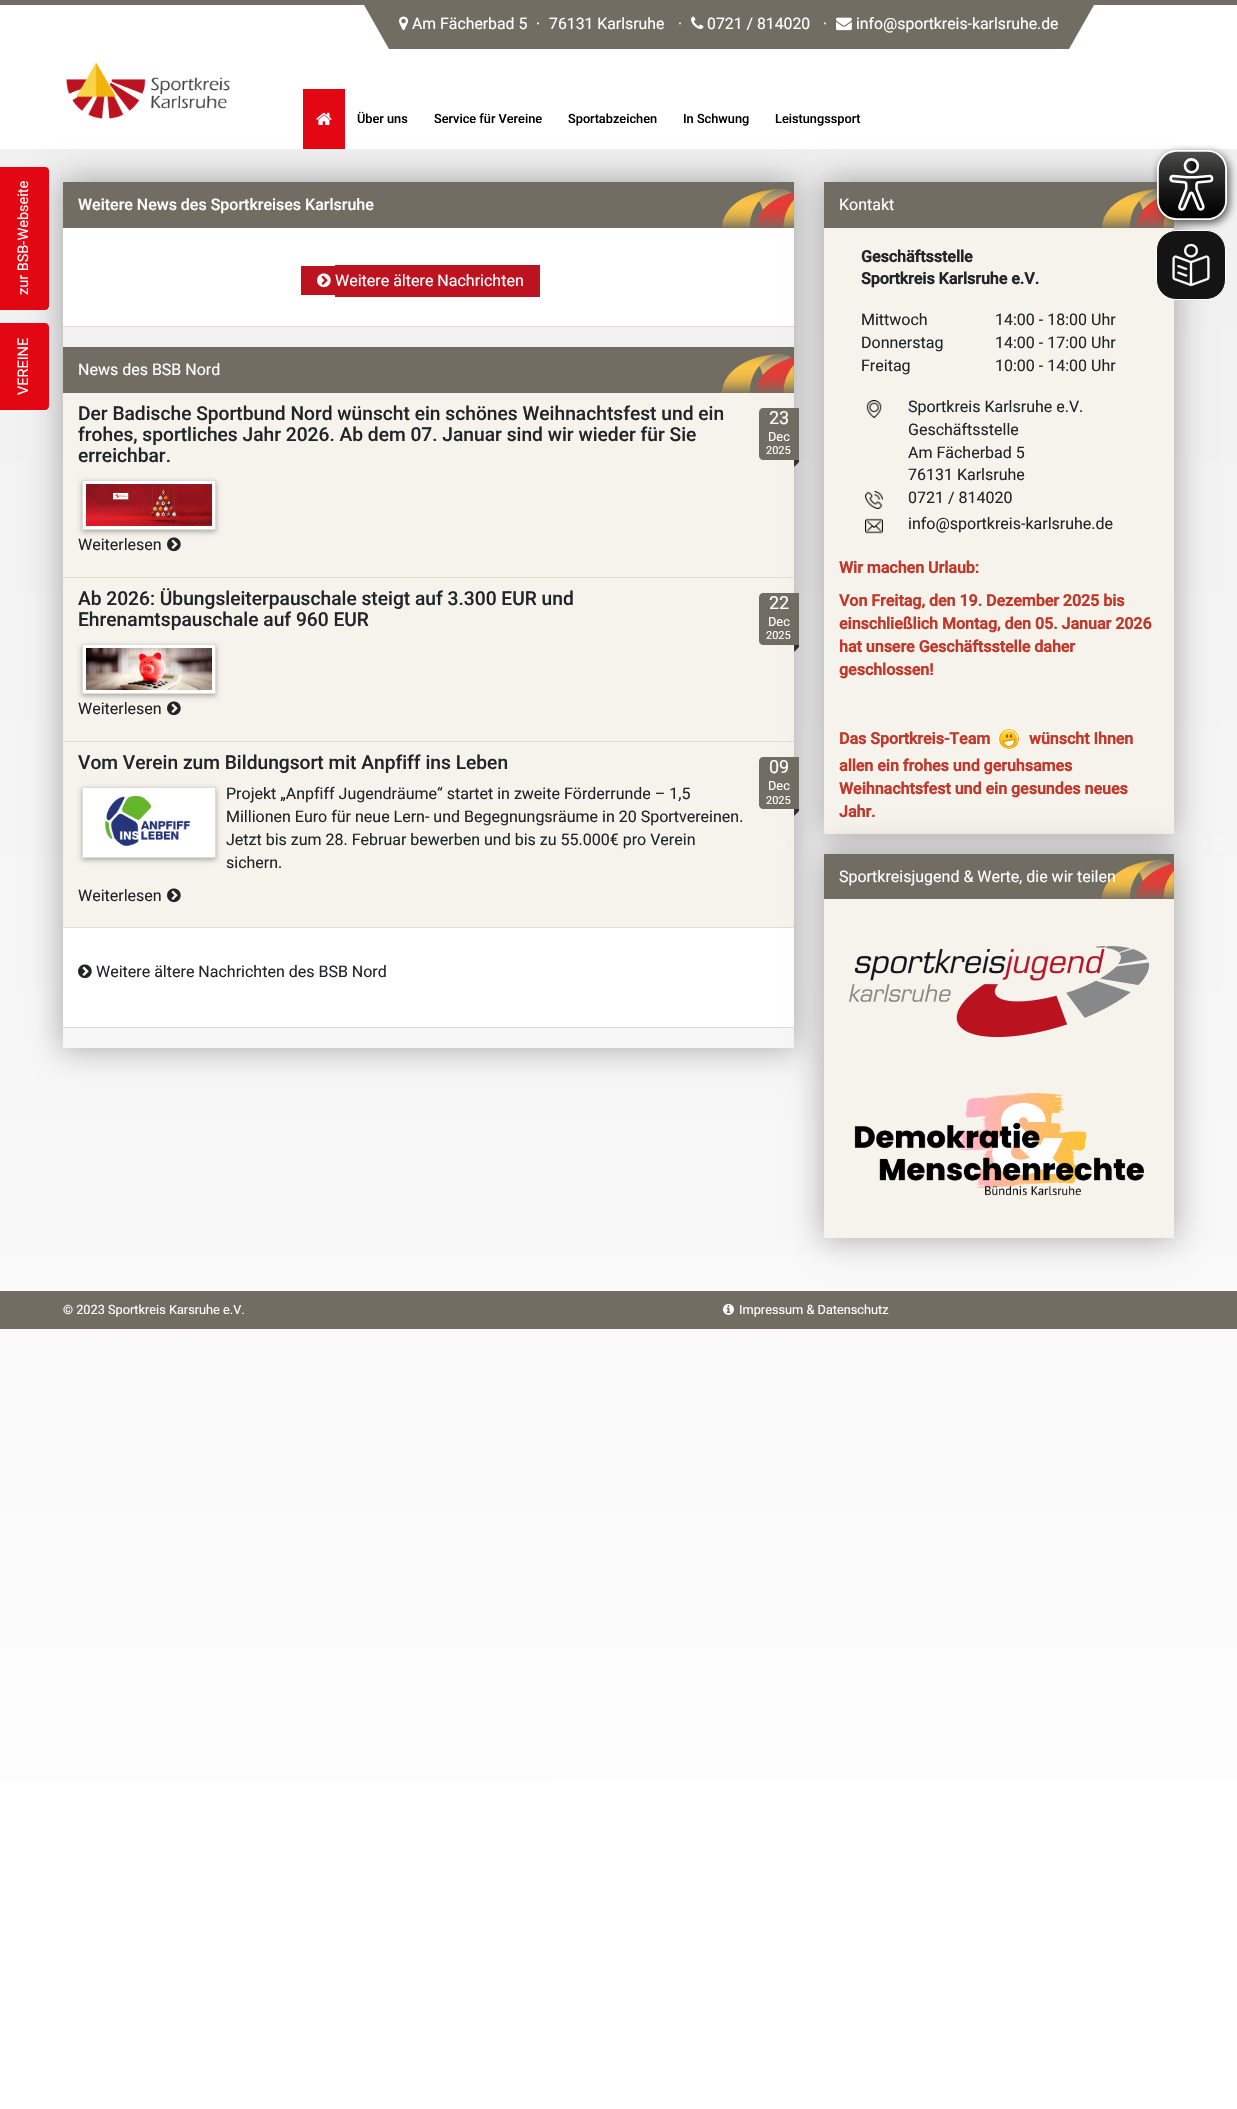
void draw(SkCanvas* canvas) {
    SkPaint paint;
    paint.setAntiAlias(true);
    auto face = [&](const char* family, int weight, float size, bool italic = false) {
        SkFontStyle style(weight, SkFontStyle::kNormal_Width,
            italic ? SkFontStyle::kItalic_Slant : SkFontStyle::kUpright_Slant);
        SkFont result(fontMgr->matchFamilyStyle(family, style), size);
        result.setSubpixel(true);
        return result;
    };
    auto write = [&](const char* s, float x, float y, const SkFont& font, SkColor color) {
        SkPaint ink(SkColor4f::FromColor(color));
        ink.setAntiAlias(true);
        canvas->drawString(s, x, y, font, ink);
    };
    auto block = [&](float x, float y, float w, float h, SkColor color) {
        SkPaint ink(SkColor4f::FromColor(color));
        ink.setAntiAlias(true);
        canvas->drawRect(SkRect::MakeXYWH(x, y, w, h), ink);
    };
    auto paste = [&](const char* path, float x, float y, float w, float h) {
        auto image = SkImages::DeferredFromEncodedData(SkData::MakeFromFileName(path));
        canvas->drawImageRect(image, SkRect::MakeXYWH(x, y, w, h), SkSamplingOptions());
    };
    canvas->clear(SK_ColorWHITE);
    {
        const SkColor colors[] = {SkColorSetRGB(239, 239, 239), SK_ColorWHITE};
        const float stops[] = {0, 1};
        const SkPoint ends[] = {{618, 0}, {619, 2109}};
        paint.setShader(SkGradientShader::MakeLinear(ends, colors, stops, 2, SkTileMode::kClamp));
        paint.setAlpha(255);
    }
    canvas->drawRect(SkRect::MakeXYWH(0, 149, 1237, 1631), paint);
    block(0, 0, 1237, 5, SkColorSetRGB(113, 109, 99));
    paint.setShader(nullptr);
    paint.setColor(SkColorSetRGB(113, 109, 99));
    canvas->drawPath(SkPathBuilder().moveTo(389, 5).lineTo(389, 49).lineTo(364, 5).close().detach(), paint);
    block(389, 5, 680, 44, SkColorSetRGB(113, 109, 99));
    paste("pic1.png", 399, 16, 9, 15);
    auto kFont1 = face("Roboto", 400, 15.8f);
    write("Am Fächerbad 5", 412, 29, kFont1, SK_ColorWHITE);
    write("·", 536, 29, kFont1, SK_ColorWHITE);
    write("76131 Karlsruhe", 549, 29, kFont1, SK_ColorWHITE);
    write("·", 678, 29, kFont1, SkColorSetRGB(246, 243, 236));
    paste("pic2.png", 691, 16, 13, 13);
    write("0721 / 814020", 707, 29, kFont1, SK_ColorWHITE);
    write("·", 823, 29, kFont1, SkColorSetRGB(246, 243, 236));
    paste("pic3.png", 836, 17, 16, 14);
    write("info@sportkreis-karlsruhe.de", 856, 29, kFont1, SK_ColorWHITE);
    canvas->drawPath(SkPathBuilder().moveTo(1069, 49).lineTo(1069, 5).lineTo(1094, 5).close().detach(), paint);
    paste("pic4.png", 66, 62, 164, 57);
    canvas->save();
    canvas->clipPath(SkPathBuilder(SkPathFillType::kEvenOdd).moveTo(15, 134).lineTo(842, 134).lineTo(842, 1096).lineTo(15, 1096).close().moveTo(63, 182).lineTo(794, 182).lineTo(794, 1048).lineTo(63, 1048).close().detach(), true);
    paint.setColor(SkColorSetARGB(77, 0, 0, 0));
    paint.setMaskFilter(SkMaskFilter::MakeBlur(kNormal_SkBlurStyle, 15));
    canvas->drawRect(SkRect::MakeXYWH(61, 180, 735, 870), paint);
    paint.setMaskFilter(nullptr);
    canvas->restore();
    block(303, 89, 42, 60, SkColorSetRGB(227, 6, 19));
    paste("pic5.png", 316, 112, 16, 13);
    auto kFont2 = face("Roboto", 500, 12.75f);
    write("Über uns", 357, 123, kFont2, SK_ColorBLACK);
    write("Service für Vereine", 434, 123, kFont2, SK_ColorBLACK);
    write("Sportabzeichen", 568, 123, kFont2, SK_ColorBLACK);
    write("In Schwung", 683, 123, kFont2, SK_ColorBLACK);
    write("Leistungssport", 775, 123, kFont2, SK_ColorBLACK);
    paint.setColor(SkColorSetRGB(227, 6, 19));
    canvas->drawPath(SkPathBuilder().moveTo(0, 310).lineTo(0, 167).lineTo(45, 167).cubicTo(47, 167, 49, 168, 49, 171).lineTo(49, 306).cubicTo(49, 308, 47, 310, 45, 310).close().detach(), paint);
    auto kFont3 = face("Roboto", 400, 14.5f);
    canvas->save();
    canvas->rotate(-90, 28, 295);
    write("zur BSB-Webseite", 28, 295, kFont3, SK_ColorWHITE);
    canvas->restore();
    block(63, 228, 731, 98, SK_ColorWHITE);
    block(63, 326, 731, 1, SkColorSetRGB(228, 221, 206));
    block(63, 182, 731, 46, SkColorSetRGB(113, 109, 99));
    paste("pic6.png", 722, 189, 72, 39);
    auto kFont4 = face("Roboto", 500, 16);
    write("Weitere News des Sportkreises Karlsruhe", 78, 210, kFont4, SK_ColorWHITE);
    block(301, 266, 34, 29, SkColorSetRGB(189, 19, 32));
    block(335, 265, 205, 32, SkColorSetRGB(189, 19, 32));
    paste("pic7.png", 317, 273, 14, 15);
    auto kFont5 = face("Roboto", 400, 16);
    write("Weitere ältere Nachrichten", 335, 286, kFont5, SK_ColorWHITE);
    block(63, 347, 731, 46, SkColorSetRGB(113, 109, 99));
    paste("pic6.png", 722, 354, 72, 39);
    block(63, 393, 731, 534, SkColorSetRGB(246, 243, 236));
    paint.setColor(SkColorSetRGB(113, 109, 99));
    canvas->drawPath(SkPathBuilder().moveTo(763, 408).lineTo(799, 408).lineTo(799, 460).lineTo(763, 460).cubicTo(761, 460, 759, 458, 759, 456).lineTo(759, 412).cubicTo(759, 410, 761, 408, 763, 408).close().detach(), paint);
    paste("pic9.png", 794, 460, 5, 7);
    block(63, 577, 731, 1, SkColorSetRGB(228, 221, 206));
    canvas->drawPath(SkPathBuilder().moveTo(763, 593).lineTo(799, 593).lineTo(799, 645).lineTo(763, 645).cubicTo(761, 645, 759, 643, 759, 641).lineTo(759, 597).cubicTo(759, 595, 761, 593, 763, 593).close().detach(), paint);
    paste("pic12.png", 794, 645, 5, 7);
    block(63, 741, 731, 1, SkColorSetRGB(228, 221, 206));
    canvas->drawPath(SkPathBuilder().moveTo(763, 757).lineTo(799, 757).lineTo(799, 809).lineTo(763, 809).cubicTo(761, 809, 759, 807, 759, 805).lineTo(759, 761).cubicTo(759, 759, 761, 757, 763, 757).close().detach(), paint);
    paste("pic14.png", 794, 809, 5, 7);
    paint.setColor(SkColorSetARGB(77, 0, 0, 0));
    paint.setMaskFilter(SkMaskFilter::MakeBlur(kNormal_SkBlurStyle, 15));
    canvas->drawRect(SkRect::MakeXYWH(822, 180, 354, 656), paint);
    paint.setMaskFilter(nullptr);
    block(824, 228, 350, 606, SkColorSetRGB(246, 243, 236));
    paint.setColor(SkColorSetRGB(21, 20, 20));
    canvas->drawRoundRect(SkRect::MakeXYWH(1156.5f, 230.5f, 69, 69), 19.5f, 19.5f, paint);
    paint.setStyle(SkPaint::kStroke_Style);
    paint.setStrokeWidth(1);
    paint.setColor(SK_ColorWHITE);
    canvas->drawRoundRect(SkRect::MakeXYWH(1156.5f, 230.5f, 69, 69), 19.5f, 19.5f, paint);
    paste("pic8.png", 1172, 243, 38, 44);
    block(63, 928, 731, 99, SK_ColorWHITE);
    block(63, 1027, 731, 1, SkColorSetRGB(228, 221, 206));
    write("News des BSB Nord", 78, 375, kFont5, SK_ColorWHITE);
    auto kFont6 = face("Roboto", 500, 19.2f);
    write("Der Badische Sportbund Nord wünscht ein schönes Weihnachtsfest und ein", 78, 420, kFont6, SkColorSetRGB(33, 37, 41));
    write("frohes, sportliches Jahr 2026. Ab dem 07. Januar sind wir wieder für Sie", 78, 441, kFont6, SkColorSetRGB(33, 37, 41));
    write("erreichbar.", 78, 462, kFont6, SkColorSetRGB(33, 37, 41));
    auto kFont7 = face("Roboto", 400, 18);
    write("23", 769, 424, kFont7, SK_ColorWHITE);
    auto kFont8 = face("Roboto", 400, 12.75f);
    write("Dec", 768, 441, kFont8, SK_ColorWHITE);
    auto kFont9 = face("Roboto", 400, 11);
    write("2025", 766, 454, kFont9, SK_ColorWHITE);
    paint.setStyle(SkPaint::kFill_Style);
    paint.setColor(SkColorSetARGB(77, 0, 0, 0));
    paint.setMaskFilter(SkMaskFilter::MakeBlur(kNormal_SkBlurStyle, 2.5f));
    canvas->drawRect(SkRect::MakeXYWH(82, 482, 134, 50), paint);
    paint.setMaskFilter(nullptr);
    paint.setColor(SK_ColorWHITE);
    canvas->drawRect(SkRect::MakeXYWH(82.5f, 480.5f, 133, 49), paint);
    paint.setStyle(SkPaint::kStroke_Style);
    paint.setColor(SkColorSetRGB(221, 221, 221));
    canvas->drawRect(SkRect::MakeXYWH(82.5f, 480.5f, 133, 49), paint);
    paste("pic10.png", 86, 484, 126, 42);
    write("Weiterlesen", 78, 550, kFont5, SkColorSetRGB(33, 37, 41));
    paste("pic11.png", 167, 537, 14, 15);
    write("Ab 2026: Übungsleiterpauschale steigt auf 3.300 EUR und", 78, 605, kFont6, SkColorSetRGB(33, 37, 41));
    write("Ehrenamtspauschale auf 960 EUR", 78, 626, kFont6, SkColorSetRGB(33, 37, 41));
    write("22", 769, 609, kFont7, SK_ColorWHITE);
    write("Dec", 768, 626, kFont8, SK_ColorWHITE);
    write("2025", 766, 639, kFont9, SK_ColorWHITE);
    paint.setStyle(SkPaint::kFill_Style);
    paint.setColor(SkColorSetARGB(77, 0, 0, 0));
    paint.setMaskFilter(SkMaskFilter::MakeBlur(kNormal_SkBlurStyle, 2.5f));
    canvas->drawRect(SkRect::MakeXYWH(82, 646, 134, 50), paint);
    paint.setMaskFilter(nullptr);
    paint.setColor(SK_ColorWHITE);
    canvas->drawRect(SkRect::MakeXYWH(82.5f, 644.5f, 133, 49), paint);
    paint.setStyle(SkPaint::kStroke_Style);
    paint.setColor(SkColorSetRGB(221, 221, 221));
    canvas->drawRect(SkRect::MakeXYWH(82.5f, 644.5f, 133, 49), paint);
    paste("pic13.png", 86, 648, 126, 42);
    write("Weiterlesen", 78, 714, kFont5, SkColorSetRGB(33, 37, 41));
    paste("pic11.png", 167, 701, 14, 15);
    write("Vom Verein zum Bildungsort mit Anpfiff ins Leben", 78, 769, kFont6, SkColorSetRGB(33, 37, 41));
    write("09", 769, 773, kFont7, SK_ColorWHITE);
    write("Dec", 768, 790, kFont8, SK_ColorWHITE);
    write("2025", 766, 804, kFont9, SK_ColorWHITE);
    paint.setStyle(SkPaint::kFill_Style);
    paint.setColor(SkColorSetARGB(77, 0, 0, 0));
    paint.setMaskFilter(SkMaskFilter::MakeBlur(kNormal_SkBlurStyle, 2.5f));
    canvas->drawRect(SkRect::MakeXYWH(82, 789, 134, 71), paint);
    paint.setMaskFilter(nullptr);
    paint.setColor(SK_ColorWHITE);
    canvas->drawRect(SkRect::MakeXYWH(82.5f, 787.5f, 133, 70), paint);
    paint.setStyle(SkPaint::kStroke_Style);
    paint.setColor(SkColorSetRGB(221, 221, 221));
    canvas->drawRect(SkRect::MakeXYWH(82.5f, 787.5f, 133, 70), paint);
    paste("pic15.png", 105, 796, 86, 50);
    write("Projekt „Anpfiff Jugendräume“ startet in zweite Förderrunde – 1,5", 226, 799, kFont5, SkColorSetRGB(33, 37, 41));
    write("Millionen Euro für neue Lern- und Begegnungsräume in 20 Sportvereinen.", 226, 822, kFont5, SkColorSetRGB(33, 37, 41));
    write("Jetzt bis zum 28. Februar bewerben und bis zu 55.000€ pro Verein", 226, 845, kFont5, SkColorSetRGB(33, 37, 41));
    write("sichern.", 226, 868, kFont5, SkColorSetRGB(33, 37, 41));
    write("Weiterlesen", 78, 901, kFont5, SkColorSetRGB(33, 37, 41));
    paste("pic16.png", 167, 888, 14, 15);
    block(63, 927, 731, 1, SkColorSetRGB(228, 221, 206));
    paste("pic17.png", 78, 964, 14, 15);
    write("Weitere ältere Nachrichten des BSB Nord", 96, 977, kFont5, SkColorSetRGB(33, 37, 41));
    block(824, 182, 350, 46, SkColorSetRGB(113, 109, 99));
    paste("pic6.png", 1102, 189, 72, 39);
    write("Kontakt", 839, 210, kFont5, SK_ColorWHITE);
    auto kFont10 = face("Roboto", 700, 16);
    write("Geschäftsstelle", 861, 262, kFont10, SkColorSetRGB(33, 37, 41));
    write("Sportkreis Karlsruhe e.V.", 861, 284, kFont10, SkColorSetRGB(33, 37, 41));
    write("Mittwoch", 861, 325, kFont5, SkColorSetRGB(33, 37, 41));
    write("14:00 - 18:00 Uhr", 995, 325, kFont5, SkColorSetRGB(33, 37, 41));
    write("Donnerstag", 861, 348, kFont5, SkColorSetRGB(33, 37, 41));
    write("14:00 - 17:00 Uhr", 995, 348, kFont5, SkColorSetRGB(33, 37, 41));
    write("Freitag", 861, 371, kFont5, SkColorSetRGB(33, 37, 41));
    write("10:00 - 14:00 Uhr", 995, 371, kFont5, SkColorSetRGB(33, 37, 41));
    paste("pic18.png", 866, 400, 16, 18);
    write("Sportkreis Karlsruhe e.V.", 908, 412, kFont5, SkColorSetRGB(33, 37, 41));
    write("Geschäftsstelle", 908, 435, kFont5, SkColorSetRGB(33, 37, 41));
    write("Am Fächerbad 5", 908, 458, kFont5, SkColorSetRGB(33, 37, 41));
    write("76131 Karlsruhe", 908, 480, kFont5, SkColorSetRGB(33, 37, 41));
    paste("pic19.png", 865, 491, 18, 18);
    write("0721 / 814020", 908, 503, kFont5, SkColorSetRGB(33, 37, 41));
    paste("pic20.png", 865, 518, 18, 16);
    write("info@sportkreis-karlsruhe.de", 908, 529, kFont5, SkColorSetRGB(33, 37, 41));
    write("Wir machen Urlaub:", 839, 573, kFont10, SkColorSetRGB(192, 57, 43));
    write("Von Freitag, den 19. Dezember 2025 bis", 839, 606, kFont10, SkColorSetRGB(192, 57, 43));
    write("einschließlich Montag, den 05. Januar 2026", 839, 629, kFont10, SkColorSetRGB(192, 57, 43));
    write("hat unsere Geschäftsstelle daher", 839, 652, kFont10, SkColorSetRGB(192, 57, 43));
    write("geschlossen!", 839, 675, kFont10, SkColorSetRGB(192, 57, 43));
    write("Das Sportkreis-Team", 839, 744, kFont10, SkColorSetRGB(192, 57, 43));
    paste("pic21.png", 998, 728, 22, 22);
    write("wünscht Ihnen", 1029, 744, kFont10, SkColorSetRGB(192, 57, 43));
    write("allen ein frohes und geruhsames", 839, 771, kFont10, SkColorSetRGB(192, 57, 43));
    write("Weihnachtsfest und ein gesundes neues", 839, 794, kFont10, SkColorSetRGB(192, 57, 43));
    write("Jahr.", 839, 817, kFont10, SkColorSetRGB(192, 57, 43));
    paint.setStyle(SkPaint::kFill_Style);
    paint.setColor(SkColorSetARGB(77, 0, 0, 0));
    paint.setMaskFilter(SkMaskFilter::MakeBlur(kNormal_SkBlurStyle, 15));
    canvas->drawRect(SkRect::MakeXYWH(822, 852, 354, 388), paint);
    paint.setMaskFilter(nullptr);
    block(824, 899, 350, 339, SkColorSetRGB(246, 243, 236));
    block(824, 854, 350, 45, SkColorSetRGB(113, 109, 99));
    paste("pic6.png", 1102, 860, 72, 39);
    write("Sportkreisjugend & Werte, die wir teilen", 839, 882, kFont5, SK_ColorWHITE);
    paste("pic22.png", 849, 946, 300, 91);
    paste("pic23.png", 854, 1092, 290, 104);
    paste("pic24.png", 1151, 145, 86, 86);
    paint.setColor(SkColorSetRGB(227, 6, 19));
    canvas->drawPath(SkPathBuilder().moveTo(0, 410).lineTo(0, 323).lineTo(45, 323).cubicTo(47, 323, 49, 325, 49, 327).lineTo(49, 406).cubicTo(49, 408, 47, 410, 45, 410).close().detach(), paint);
    canvas->save();
    canvas->rotate(-90, 28, 395);
    write("VEREINE", 28, 395, kFont3, SK_ColorWHITE);
    canvas->restore();
    block(0, 1290, 1237, 1, SK_ColorWHITE);
    block(0, 1291, 1237, 38, SkColorSetRGB(113, 109, 99));
    write("© 2023 Sportkreis Karsruhe e.V.", 63, 1314, kFont8, SK_ColorWHITE);
    paste("pic25.png", 723, 1303, 11, 12);
    write("Impressum & Datenschutz", 739, 1314, kFont8, SK_ColorWHITE);
}
